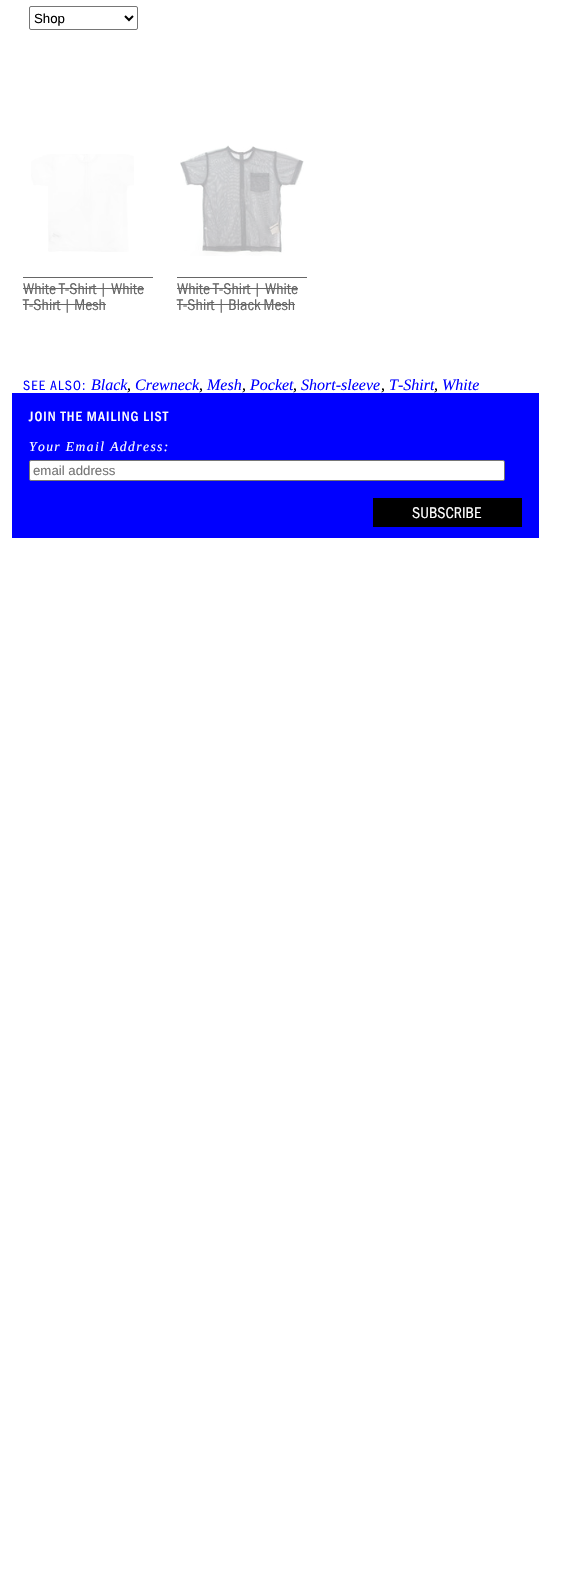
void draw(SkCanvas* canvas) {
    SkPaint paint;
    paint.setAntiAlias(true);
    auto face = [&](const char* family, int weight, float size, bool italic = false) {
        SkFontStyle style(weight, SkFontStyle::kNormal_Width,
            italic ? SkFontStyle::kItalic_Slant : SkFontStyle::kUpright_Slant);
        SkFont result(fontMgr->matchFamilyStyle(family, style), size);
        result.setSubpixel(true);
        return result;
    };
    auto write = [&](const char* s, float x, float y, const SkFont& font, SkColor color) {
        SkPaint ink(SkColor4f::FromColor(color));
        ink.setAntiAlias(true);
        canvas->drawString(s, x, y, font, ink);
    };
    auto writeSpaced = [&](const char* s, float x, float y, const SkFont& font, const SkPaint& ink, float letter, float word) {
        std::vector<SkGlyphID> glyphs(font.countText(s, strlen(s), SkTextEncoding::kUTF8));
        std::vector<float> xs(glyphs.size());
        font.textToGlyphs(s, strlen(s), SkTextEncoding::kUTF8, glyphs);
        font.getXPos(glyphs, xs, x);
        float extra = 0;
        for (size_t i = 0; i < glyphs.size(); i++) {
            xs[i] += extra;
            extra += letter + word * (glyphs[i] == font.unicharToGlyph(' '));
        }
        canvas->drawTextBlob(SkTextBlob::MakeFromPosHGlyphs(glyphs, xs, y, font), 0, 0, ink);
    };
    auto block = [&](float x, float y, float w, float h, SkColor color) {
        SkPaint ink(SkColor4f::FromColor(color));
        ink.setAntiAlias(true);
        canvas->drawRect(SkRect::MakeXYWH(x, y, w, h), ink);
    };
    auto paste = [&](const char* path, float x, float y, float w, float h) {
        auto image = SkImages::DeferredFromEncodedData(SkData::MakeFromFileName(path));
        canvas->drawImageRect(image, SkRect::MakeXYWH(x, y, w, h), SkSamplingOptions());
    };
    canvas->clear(SK_ColorWHITE);
    paint.setStyle(SkPaint::kStroke_Style);
    paint.setStrokeWidth(1);
    paint.setColor(SkColorSetRGB(118, 118, 118));
    canvas->drawRoundRect(SkRect::MakeXYWH(29.5f, 6.5f, 108, 23), 1.5f, 1.5f, paint);
    paint.setStrokeWidth(2);
    paint.setColor(SK_ColorBLACK);
    canvas->drawPath(SkPathBuilder().moveTo(125, 16).lineTo(129, 20).lineTo(133, 16).detach(), paint);
    auto kFont1 = face("Liberation Sans", 400, 13.25f);
    write("Shop", 34, 23, kFont1, SK_ColorBLACK);
    paste("pic1.png", 31, 154, 103, 98);
    block(23, 277, 130, 1, SkColorSetRGB(102, 102, 102));
    auto kFont2 = face("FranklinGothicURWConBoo", 400, 16);
    write("White T-Shirt |", 23, 294, kFont2, SkColorSetRGB(102, 102, 102));
    block(23, 288, 88, 1, SkColorSetRGB(102, 102, 102));
    write("White", 111, 294, kFont2, SkColorSetRGB(102, 102, 102));
    block(111, 288, 33, 1, SkColorSetRGB(102, 102, 102));
    write("T-Shirt | Mesh", 23, 310, kFont2, SkColorSetRGB(102, 102, 102));
    block(23, 304, 83, 1, SkColorSetRGB(102, 102, 102));
    paste("pic2.png", 180, 145, 124, 111);
    block(177, 277, 130, 1, SkColorSetRGB(102, 102, 102));
    write("White T-Shirt |", 177, 294, kFont2, SkColorSetRGB(102, 102, 102));
    block(177, 288, 88, 1, SkColorSetRGB(102, 102, 102));
    write("White", 265, 294, kFont2, SkColorSetRGB(102, 102, 102));
    block(265, 288, 33, 1, SkColorSetRGB(102, 102, 102));
    write("T-Shirt | Black Mesh", 177, 310, kFont2, SkColorSetRGB(102, 102, 102));
    block(177, 304, 118, 1, SkColorSetRGB(102, 102, 102));
    auto kFont3 = face("FranklinGothicURWConBoo", 400, 14);
    paint.setStyle(SkPaint::kFill_Style);
    paint.setColor(SkColorSetRGB(0, 0, 255));
    writeSpaced("SEE ALSO:", 23, 390, kFont3, paint, 1.1f, 0);
    auto kFont4 = face("Liberation Serif", 400, 16, true);
    write("Black", 91, 390, kFont4, SkColorSetRGB(0, 0, 255));
    write(",", 127, 390, kFont4, SK_ColorBLACK);
    write("Crewneck", 135, 390, kFont4, SkColorSetRGB(0, 0, 255));
    write(",", 199, 390, kFont4, SK_ColorBLACK);
    write("Mesh", 207, 390, kFont4, SkColorSetRGB(0, 0, 255));
    write(",", 242, 390, kFont4, SK_ColorBLACK);
    write("Pocket", 250, 390, kFont4, SkColorSetRGB(0, 0, 255));
    write(",", 293, 390, kFont4, SK_ColorBLACK);
    write("Short-sleeve", 301, 390, kFont4, SkColorSetRGB(0, 0, 255));
    write(",", 381, 390, kFont4, SK_ColorBLACK);
    write("T-Shirt", 389, 390, kFont4, SkColorSetRGB(0, 0, 255));
    write(",", 434, 390, kFont4, SK_ColorBLACK);
    write("White", 442, 390, kFont4, SkColorSetRGB(0, 0, 255));
    block(12, 393, 527, 145, SkColorSetRGB(0, 0, 255));
    auto kFont5 = face("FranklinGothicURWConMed", 400, 14);
    paint.setColor(SK_ColorWHITE);
    writeSpaced("JOIN THE MAILING LIST", 29, 421, kFont5, paint, 1.1f, 0);
    auto kFont6 = face("Liberation Serif", 400, 13.6f, true);
    writeSpaced("Your Email Address:", 29, 451, kFont6, paint, 1.4f, 0);
    canvas->drawRoundRect(SkRect::MakeXYWH(29.5f, 460.5f, 475, 20), 1.5f, 1.5f, paint);
    paint.setStyle(SkPaint::kStroke_Style);
    paint.setStrokeWidth(1);
    paint.setColor(SkColorSetRGB(118, 118, 118));
    canvas->drawRoundRect(SkRect::MakeXYWH(29.5f, 460.5f, 475, 20), 1.5f, 1.5f, paint);
    write("email address", 33, 475, kFont1, SkColorSetRGB(117, 117, 117));
    block(373, 498, 149, 29, SK_ColorBLACK);
    write("SUBSCRIBE", 412, 518, kFont2, SK_ColorWHITE);
}
